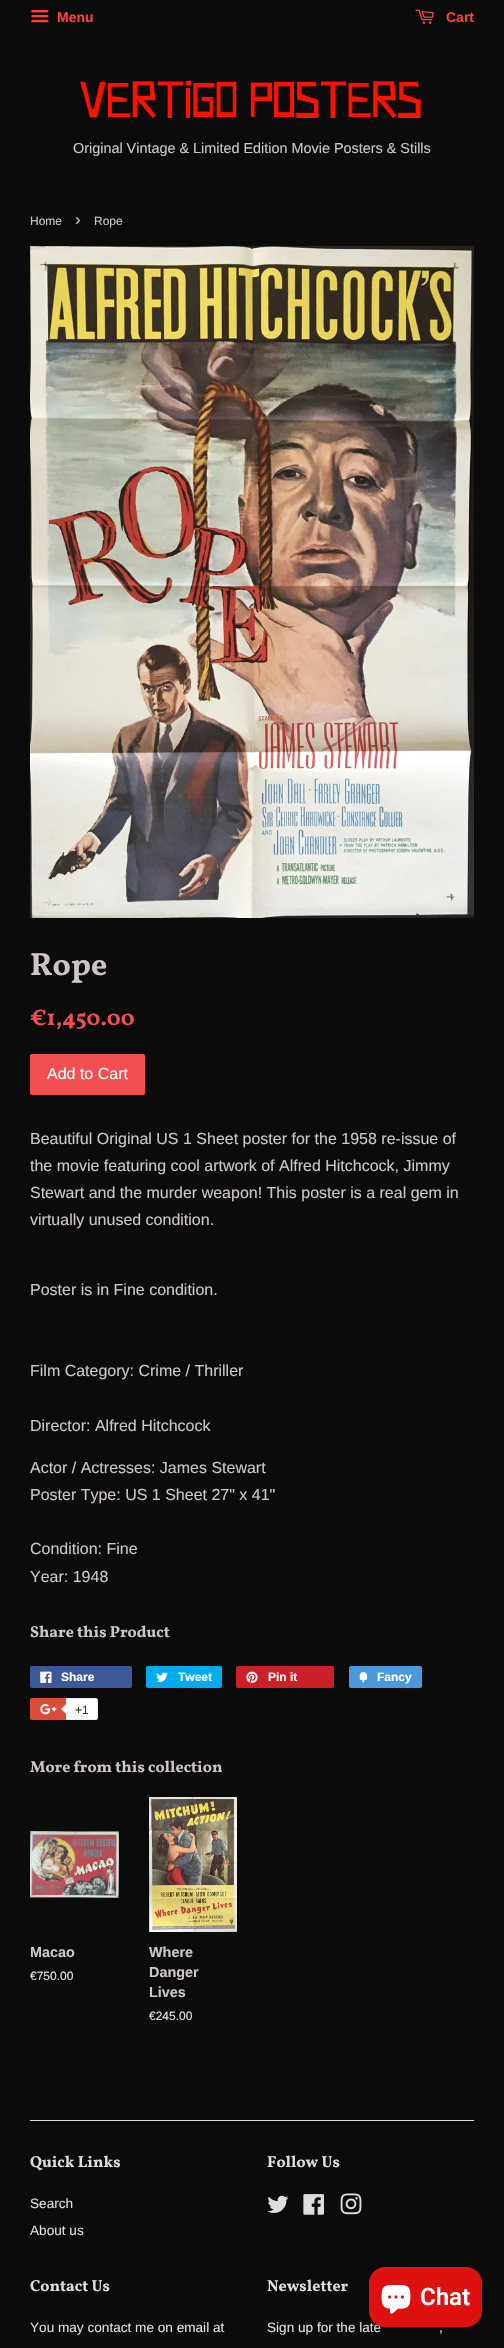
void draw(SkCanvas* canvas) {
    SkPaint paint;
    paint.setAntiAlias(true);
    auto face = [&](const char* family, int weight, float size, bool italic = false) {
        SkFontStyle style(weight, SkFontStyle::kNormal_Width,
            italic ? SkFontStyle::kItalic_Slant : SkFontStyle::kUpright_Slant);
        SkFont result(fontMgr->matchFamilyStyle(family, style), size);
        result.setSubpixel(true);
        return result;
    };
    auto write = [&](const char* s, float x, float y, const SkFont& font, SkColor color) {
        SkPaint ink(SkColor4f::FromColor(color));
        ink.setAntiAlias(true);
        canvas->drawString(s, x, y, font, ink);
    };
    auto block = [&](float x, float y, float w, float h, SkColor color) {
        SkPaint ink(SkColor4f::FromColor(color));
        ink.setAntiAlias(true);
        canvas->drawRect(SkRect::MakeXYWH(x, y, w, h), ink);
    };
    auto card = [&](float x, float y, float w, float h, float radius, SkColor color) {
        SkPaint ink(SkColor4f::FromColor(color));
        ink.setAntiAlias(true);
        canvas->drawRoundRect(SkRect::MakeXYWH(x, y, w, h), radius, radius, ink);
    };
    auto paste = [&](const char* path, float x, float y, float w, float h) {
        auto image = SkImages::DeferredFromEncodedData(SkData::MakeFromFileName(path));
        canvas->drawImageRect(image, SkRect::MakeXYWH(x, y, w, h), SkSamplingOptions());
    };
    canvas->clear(SkColorSetRGB(11, 11, 11));
    paste("pic1.png", 31, 10, 18, 13);
    auto kFont1 = face("Liberation Sans", 700, 14);
    write("Menu", 57, 22, kFont1, SkColorSetRGB(247, 65, 58));
    paste("pic2.png", 415, 9, 19, 15);
    write("Cart", 446, 22, kFont1, SkColorSetRGB(247, 65, 58));
    paste("pic3.png", 80, 80, 341, 39);
    auto kFont2 = face("Liberation Sans", 400, 14.4f);
    write("Original Vintage & Limited Edition Movie Posters & Stills", 73, 153, kFont2, SkColorSetRGB(205, 197, 197));
    auto kFont3 = face("Liberation Sans", 400, 12);
    write("Home", 30, 225, kFont3, SkColorSetRGB(205, 197, 197));
    auto kFont4 = face("Liberation Sans", 400, 17);
    write("›", 75, 225, kFont4, SkColorSetRGB(205, 197, 197));
    write("Rope", 94, 225, kFont3, SkColorSetRGB(205, 197, 197));
    paste("pic4.png", 30, 246, 444, 672);
    auto kFont5 = face("Vollkorn", 700, 32);
    write("Rope", 30, 975, kFont5, SkColorSetRGB(205, 197, 197));
    auto kFont6 = face("Vollkorn", 700, 22.5f);
    write("€1,450.00", 30, 1025, kFont6, SkColorSetRGB(242, 80, 80));
    card(30, 1054, 115, 41, 2, SkColorSetRGB(242, 80, 80));
    auto kFont7 = face("Liberation Sans", 400, 16);
    write("Add to Cart", 47, 1079, kFont7, SK_ColorWHITE);
    write("Beautiful Original US 1 Sheet poster for the 1958 re-issue of", 30, 1144, kFont7, SkColorSetRGB(205, 197, 197));
    write("the movie featuring cool artwork of Alfred Hitchcock, Jimmy", 30, 1171, kFont7, SkColorSetRGB(205, 197, 197));
    write("Stewart and the murder weapon! This poster is a real gem in", 30, 1198, kFont7, SkColorSetRGB(205, 197, 197));
    write("virtually unused condition.", 30, 1225, kFont7, SkColorSetRGB(205, 197, 197));
    write("Poster is in Fine condition.", 30, 1295, kFont7, SkColorSetRGB(205, 197, 197));
    write("Film Category: Crime / Thriller", 30, 1376, kFont7, SkColorSetRGB(205, 197, 197));
    write("Director: Alfred Hitchcock", 30, 1431, kFont7, SkColorSetRGB(205, 197, 197));
    write("Actor / Actresses: James Stewart", 30, 1473, kFont7, SkColorSetRGB(205, 197, 197));
    write("Poster Type: US 1 Sheet 27\" x 41\"", 30, 1500, kFont7, SkColorSetRGB(205, 197, 197));
    write("Condition: Fine", 30, 1554, kFont7, SkColorSetRGB(205, 197, 197));
    write("Year: 1948", 30, 1582, kFont7, SkColorSetRGB(205, 197, 197));
    auto kFont8 = face("Vollkorn", 700, 16);
    write("Share this Product", 30, 1637, kFont8, SkColorSetRGB(205, 197, 197));
    card(30, 1666, 102, 22, 2, SkColorSetRGB(59, 89, 152));
    paste("pic5.png", 40, 1671, 12, 12);
    auto kFont9 = face("Liberation Sans", 700, 12);
    write("Share", 61, 1681, kFont9, SK_ColorWHITE);
    card(146, 1666, 76, 22, 2, SkColorSetRGB(0, 172, 237));
    paste("pic6.png", 156, 1672, 12, 10);
    write("Tweet", 178, 1681, kFont9, SK_ColorWHITE);
    card(236, 1666, 98, 22, 2, SkColorSetRGB(203, 32, 39));
    paste("pic7.png", 246, 1671, 12, 12);
    write("Pin it", 268, 1681, kFont9, SK_ColorWHITE);
    card(349, 1666, 73, 22, 2, SkColorSetRGB(73, 153, 220));
    paste("pic8.png", 359, 1672, 9, 11);
    write("Fancy", 377, 1681, kFont9, SK_ColorWHITE);
    card(30, 1698, 66, 22, 2, SkColorSetRGB(221, 75, 57));
    paste("pic9.png", 40, 1704, 17, 11);
    paint.setColor(SK_ColorWHITE);
    canvas->drawPath(SkPathBuilder().moveTo(66.5f, 1698.5f).lineTo(96, 1698.5f).cubicTo(97, 1698.5f, 97.5f, 1699, 97.5f, 1700).lineTo(97.5f, 1718).cubicTo(97.5f, 1719, 97, 1719.5f, 96, 1719.5f).lineTo(66.5f, 1719.5f).close().detach(), paint);
    paint.setStyle(SkPaint::kStroke_Style);
    paint.setStrokeWidth(1);
    paint.setColor(SkColorSetRGB(236, 236, 236));
    canvas->drawPath(SkPathBuilder().moveTo(66.5f, 1698.5f).lineTo(96, 1698.5f).cubicTo(97, 1698.5f, 97.5f, 1699, 97.5f, 1700).lineTo(97.5f, 1718).cubicTo(97.5f, 1719, 97, 1719.5f, 96, 1719.5f).lineTo(66.5f, 1719.5f).close().detach(), paint);
    paint.setStyle(SkPaint::kFill_Style);
    canvas->drawPath(SkPathBuilder().moveTo(67, 1703).lineTo(67, 1715).lineTo(61, 1709).close().detach(), paint);
    paint.setColor(SK_ColorWHITE);
    canvas->drawPath(SkPathBuilder().moveTo(68, 1703).lineTo(68, 1715).lineTo(62, 1709).close().detach(), paint);
    write("+1", 75, 1714, kFont3, SkColorSetRGB(51, 51, 51));
    write("More from this collection", 30, 1772, kFont8, SkColorSetRGB(205, 197, 197));
    paste("pic10.png", 30, 1831, 89, 67);
    auto kFont10 = face("Liberation Sans", 700, 14.4f);
    write("Macao", 30, 1957, kFont10, SkColorSetRGB(205, 197, 197));
    write("€750.00", 30, 1980, kFont3, SkColorSetRGB(229, 224, 224));
    paste("pic11.png", 149, 1797, 88, 135);
    write("Where", 149, 1957, kFont10, SkColorSetRGB(205, 197, 197));
    write("Danger", 149, 1977, kFont10, SkColorSetRGB(205, 197, 197));
    write("Lives", 149, 1997, kFont10, SkColorSetRGB(205, 197, 197));
    write("€245.00", 149, 2020, kFont3, SkColorSetRGB(229, 224, 224));
    block(30, 2120, 444, 1, SkColorSetRGB(221, 221, 221));
    write("Quick Links", 30, 2167, kFont8, SkColorSetRGB(221, 221, 221));
    auto kFont11 = face("Liberation Sans", 400, 13.6f);
    write("Search", 30, 2208, kFont11, SkColorSetRGB(221, 221, 221));
    write("About us", 30, 2235, kFont11, SkColorSetRGB(221, 221, 221));
    write("Follow Us", 267, 2167, kFont8, SkColorSetRGB(221, 221, 221));
    paste("pic12.png", 267, 2195, 22, 18);
    paste("pic13.png", 303, 2194, 21, 21);
    paste("pic14.png", 340, 2193, 22, 22);
    write("Contact Us", 30, 2291, kFont8, SkColorSetRGB(221, 221, 221));
    write("You may contact me on email at", 30, 2332, kFont11, SkColorSetRGB(221, 221, 221));
    write("Newsletter", 267, 2291, kFont8, SkColorSetRGB(221, 221, 221));
    write("Sign up for the late", 267, 2332, kFont11, SkColorSetRGB(221, 221, 221));
    write(",", 439, 2332, kFont11, SkColorSetRGB(221, 221, 221));
    paint.setColor(SkColorSetARGB(38, 0, 0, 0));
    paint.setMaskFilter(SkMaskFilter::MakeBlur(kNormal_SkBlurStyle, 2.5f));
    canvas->drawRoundRect(SkRect::MakeXYWH(369, 2267, 113, 60), 16, 16, paint);
    paint.setMaskFilter(nullptr);
    card(369, 2267, 113, 60, 16, SkColorSetRGB(222, 17, 17));
    paste("pic15.png", 381, 2285, 30, 29);
    auto kFont12 = face("Roboto", 600, 24);
    write("Chat", 420, 2305, kFont12, SK_ColorWHITE);
}
